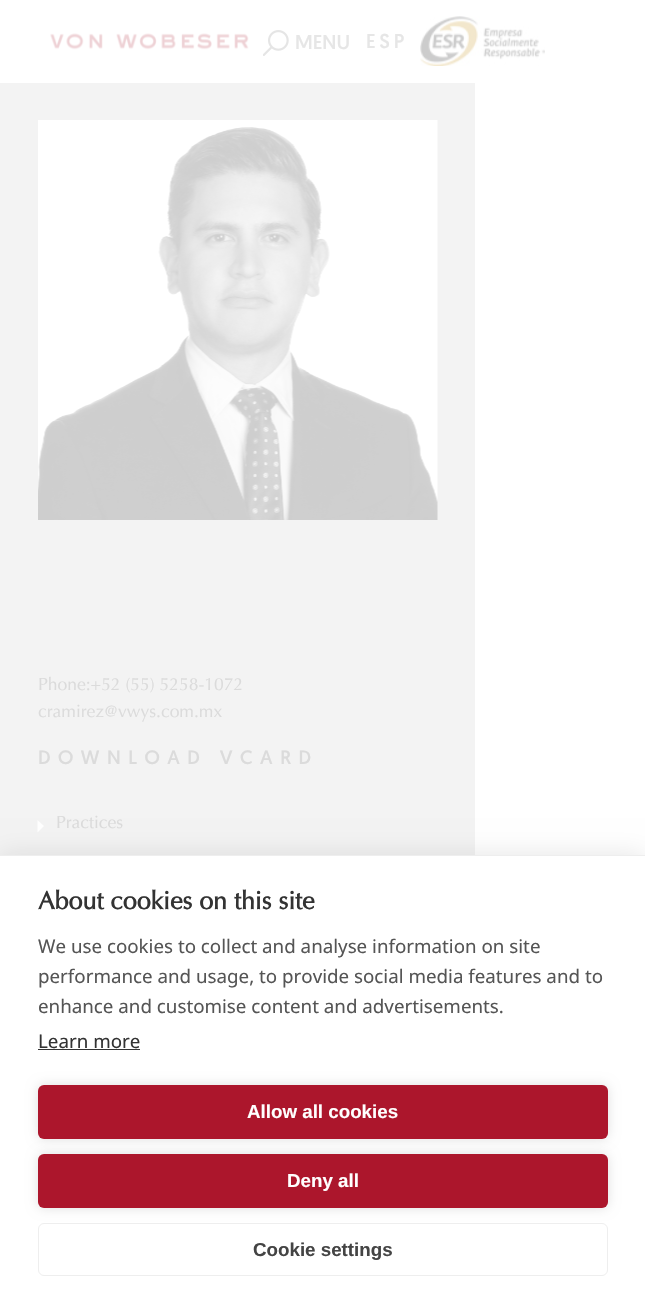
void draw(SkCanvas* canvas) {
    SkPaint paint;
    paint.setAntiAlias(true);
    auto face = [&](const char* family, int weight, float size, bool italic = false) {
        SkFontStyle style(weight, SkFontStyle::kNormal_Width,
            italic ? SkFontStyle::kItalic_Slant : SkFontStyle::kUpright_Slant);
        SkFont result(fontMgr->matchFamilyStyle(family, style), size);
        result.setSubpixel(true);
        return result;
    };
    auto write = [&](const char* s, float x, float y, const SkFont& font, SkColor color) {
        SkPaint ink(SkColor4f::FromColor(color));
        ink.setAntiAlias(true);
        canvas->drawString(s, x, y, font, ink);
    };
    auto writeSpaced = [&](const char* s, float x, float y, const SkFont& font, const SkPaint& ink, float letter, float word) {
        std::vector<SkGlyphID> glyphs(font.countText(s, strlen(s), SkTextEncoding::kUTF8));
        std::vector<float> xs(glyphs.size());
        font.textToGlyphs(s, strlen(s), SkTextEncoding::kUTF8, glyphs);
        font.getXPos(glyphs, xs, x);
        float extra = 0;
        for (size_t i = 0; i < glyphs.size(); i++) {
            xs[i] += extra;
            extra += letter + word * (glyphs[i] == font.unicharToGlyph(' '));
        }
        canvas->drawTextBlob(SkTextBlob::MakeFromPosHGlyphs(glyphs, xs, y, font), 0, 0, ink);
    };
    auto block = [&](float x, float y, float w, float h, SkColor color) {
        SkPaint ink(SkColor4f::FromColor(color));
        ink.setAntiAlias(true);
        canvas->drawRect(SkRect::MakeXYWH(x, y, w, h), ink);
    };
    auto card = [&](float x, float y, float w, float h, float radius, SkColor color) {
        SkPaint ink(SkColor4f::FromColor(color));
        ink.setAntiAlias(true);
        canvas->drawRoundRect(SkRect::MakeXYWH(x, y, w, h), radius, radius, ink);
    };
    auto paste = [&](const char* path, float x, float y, float w, float h) {
        auto image = SkImages::DeferredFromEncodedData(SkData::MakeFromFileName(path));
        canvas->drawImageRect(image, SkRect::MakeXYWH(x, y, w, h), SkSamplingOptions());
    };
    canvas->clear(SK_ColorWHITE);
    paste("pic1.png", 420, 16, 125, 50);
    paste("pic2.png", 50, 33, 199, 17);
    paste("pic3.png", 263, 30, 26, 26);
    auto kFont1 = face("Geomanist", 400, 20);
    write("MENU", 295, 49, kFont1, SkColorSetRGB(230, 230, 230));
    paint.setColor(SkColorSetRGB(230, 230, 230));
    writeSpaced("ESP", 366, 48, kFont1, paint, 4, 0);
    block(0, 83, 475, 772, SkColorSetRGB(243, 243, 243));
    paste("pic4.png", 38, 120, 400, 400);
    auto kFont2 = face("Optima", 400, 17.5f);
    write("Phone:+52 (55) 5258-1072", 38, 690, kFont2, SkColorSetRGB(219, 219, 219));
    write("cramirez@vwys.com.mx", 38, 717, kFont2, SkColorSetRGB(219, 219, 219));
    auto kFont3 = face("Geomanist", 400, 19.4f);
    paint.setColor(SkColorSetRGB(219, 219, 219));
    writeSpaced("DOWNLOAD VCARD", 38, 764, kFont3, paint, 7.5f, 0);
    paint.setColor(SK_ColorWHITE);
    canvas->drawPath(SkPathBuilder().moveTo(37.5f, 832.5f).lineTo(37.5f, 820).lineTo(44, 826).close().detach(), paint);
    write("Practices", 56, 828, kFont2, SkColorSetRGB(219, 219, 219));
    paint.setColor(SkColorSetARGB(26, 0, 0, 0));
    paint.setMaskFilter(SkMaskFilter::MakeBlur(kNormal_SkBlurStyle, 12.5f));
    canvas->drawRect(SkRect::MakeXYWH(0, 855, 645, 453), paint);
    paint.setMaskFilter(nullptr);
    block(0, 856, 645, 451, SK_ColorWHITE);
    block(0, 855, 645, 1, SkColorSetRGB(238, 238, 238));
    auto kFont4 = face("Optima", 700, 25);
    write("About cookies on this site", 38, 909, kFont4, SkColorSetRGB(51, 51, 51));
    auto kFont5 = face("Noto Sans", 400, 18.75f);
    write("We use cookies to collect and analyse information on site", 38, 953, kFont5, SkColorSetRGB(85, 85, 85));
    write("performance and usage, to provide social media features and to", 38, 983, kFont5, SkColorSetRGB(85, 85, 85));
    write("enhance and customise content and advertisements.", 38, 1013, kFont5, SkColorSetRGB(85, 85, 85));
    write("Learn more", 38, 1048, kFont5, SkColorSetRGB(51, 51, 51));
    block(38, 1049, 102, 1, SkColorSetRGB(51, 51, 51));
    paint.setColor(SkColorSetARGB(31, 0, 0, 0));
    paint.setMaskFilter(SkMaskFilter::MakeBlur(kNormal_SkBlurStyle, 6));
    canvas->drawRoundRect(SkRect::MakeXYWH(38, 1085, 570, 54), 6, 6, paint);
    paint.setMaskFilter(nullptr);
    card(38, 1085, 570, 54, 6, SkColorSetRGB(172, 22, 44));
    auto kFont6 = face("Liberation Sans", 700, 18.75f);
    write("Allow all cookies", 247, 1118, kFont6, SK_ColorWHITE);
    paint.setMaskFilter(SkMaskFilter::MakeBlur(kNormal_SkBlurStyle, 6));
    canvas->drawRoundRect(SkRect::MakeXYWH(38, 1154, 570, 54), 6, 6, paint);
    paint.setMaskFilter(nullptr);
    card(38, 1154, 570, 54, 6, SkColorSetRGB(172, 22, 44));
    write("Deny all", 287, 1187, kFont6, SK_ColorWHITE);
    paint.setStyle(SkPaint::kStroke_Style);
    paint.setStrokeWidth(1);
    paint.setColor(SkColorSetRGB(238, 238, 238));
    canvas->drawRoundRect(SkRect::MakeXYWH(38.5f, 1223.5f, 569, 52), 5.5f, 5.5f, paint);
    write("Cookie settings", 253, 1256, kFont6, SkColorSetRGB(68, 68, 68));
}
